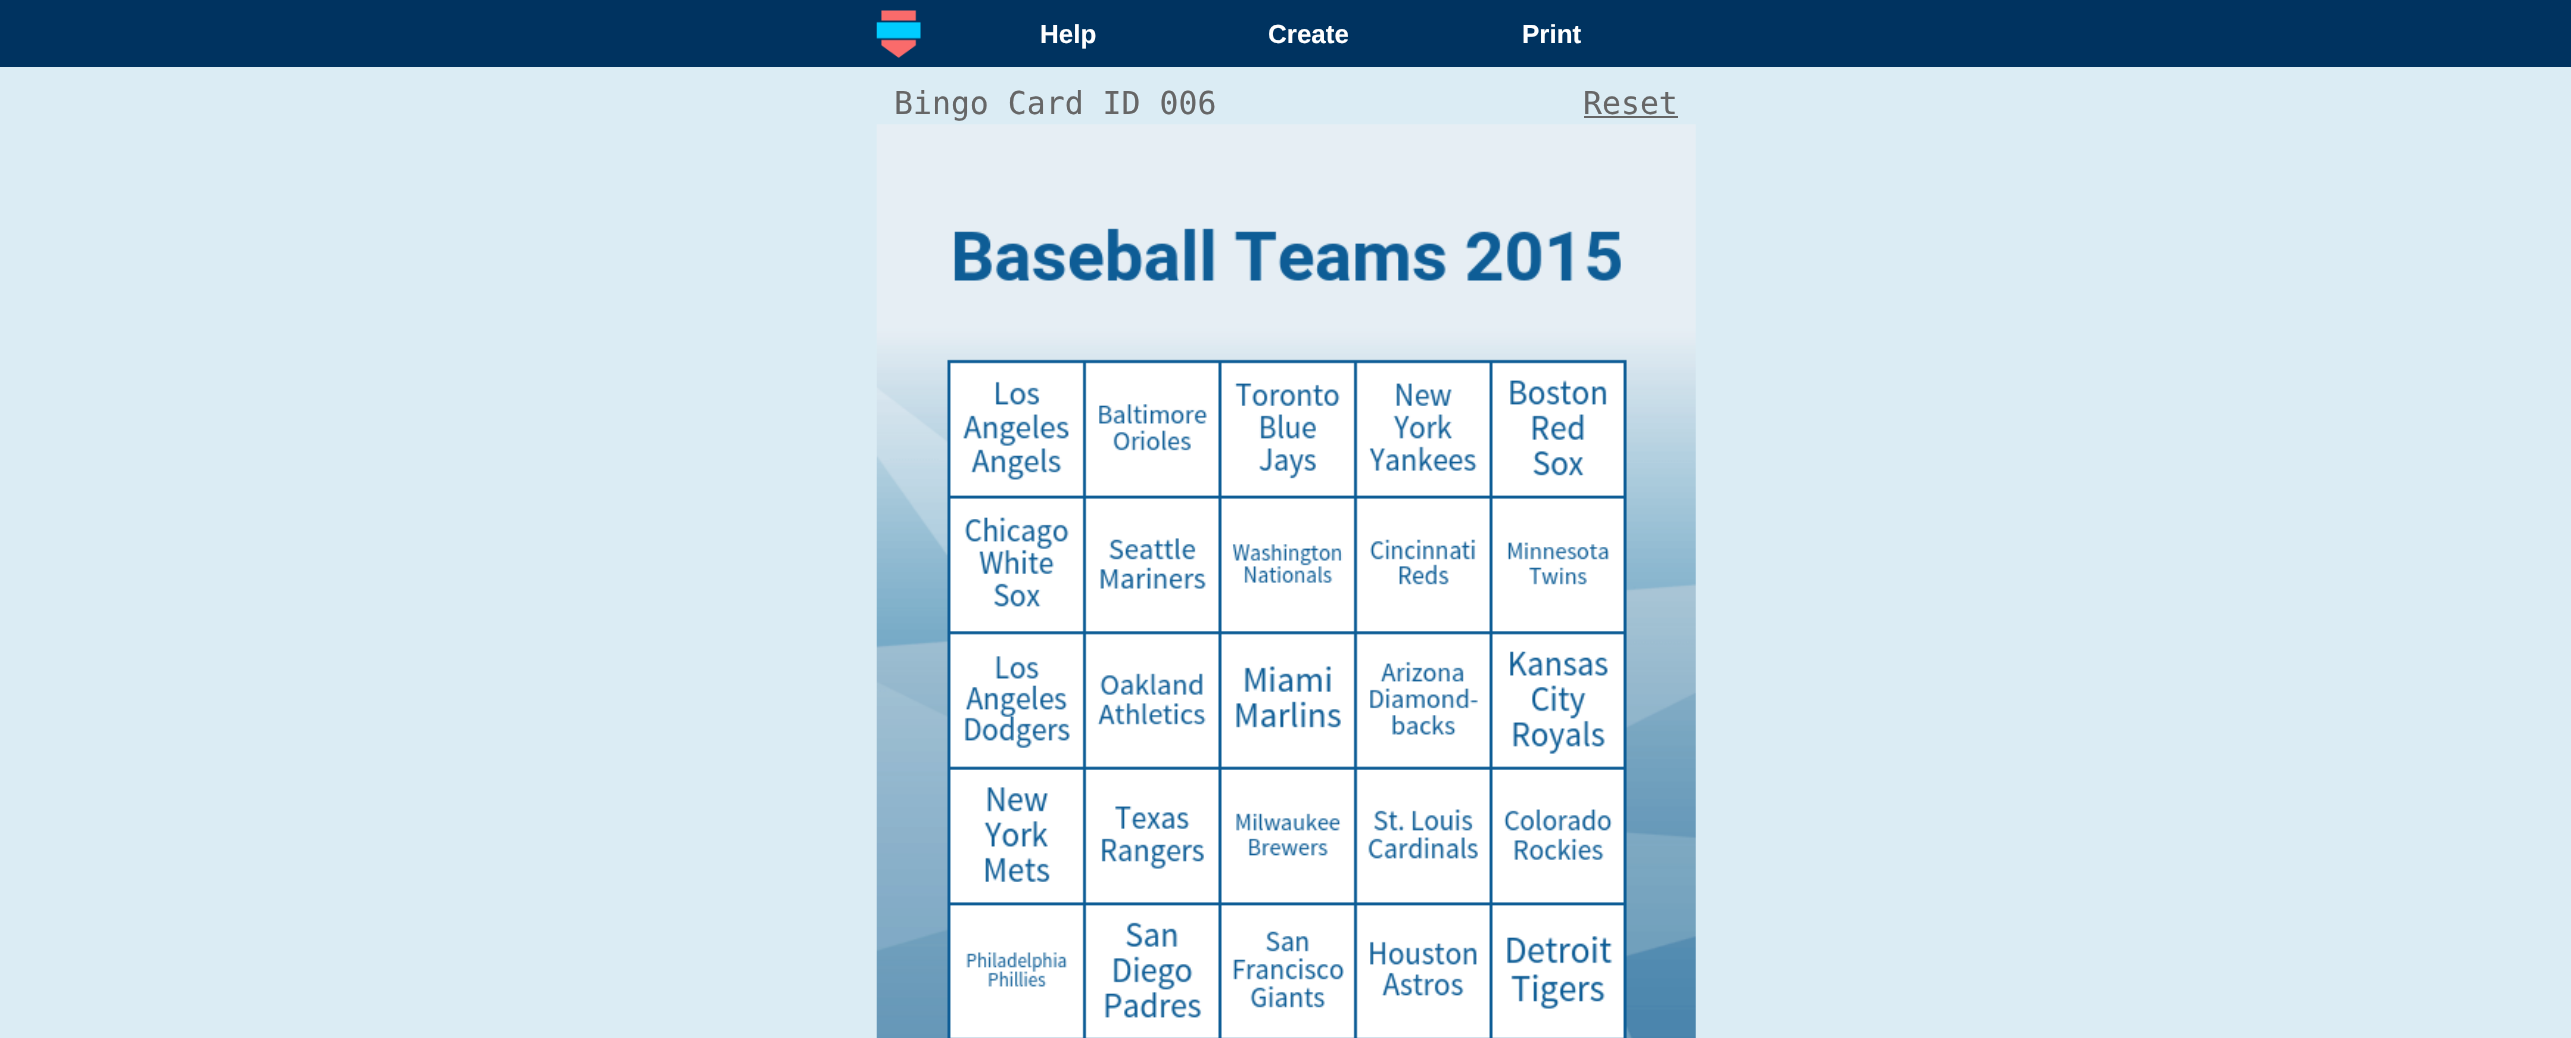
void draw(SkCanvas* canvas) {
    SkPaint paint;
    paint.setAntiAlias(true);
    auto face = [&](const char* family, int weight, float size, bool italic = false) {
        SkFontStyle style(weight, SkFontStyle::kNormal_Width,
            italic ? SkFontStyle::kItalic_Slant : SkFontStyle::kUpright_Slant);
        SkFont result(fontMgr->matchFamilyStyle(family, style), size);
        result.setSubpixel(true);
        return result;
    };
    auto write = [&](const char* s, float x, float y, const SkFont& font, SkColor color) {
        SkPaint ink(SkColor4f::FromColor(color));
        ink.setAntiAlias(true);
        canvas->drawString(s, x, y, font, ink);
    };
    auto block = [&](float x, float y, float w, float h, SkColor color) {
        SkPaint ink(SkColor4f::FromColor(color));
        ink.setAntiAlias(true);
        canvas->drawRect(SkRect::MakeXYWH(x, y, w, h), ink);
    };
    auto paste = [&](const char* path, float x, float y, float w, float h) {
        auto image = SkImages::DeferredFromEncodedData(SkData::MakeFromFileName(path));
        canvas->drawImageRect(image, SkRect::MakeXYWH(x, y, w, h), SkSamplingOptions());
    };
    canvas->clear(SkColorSetRGB(219, 236, 244));
    block(0, 0, 2571, 67, SkColorSetRGB(0, 51, 96));
    paste("pic1.png", 876, 10, 45, 48);
    auto kFont1 = face("Liberation Sans", 700, 26);
    write("Help", 1040, 43, kFont1, SK_ColorWHITE);
    write("Create", 1268, 43, kFont1, SK_ColorWHITE);
    write("Print", 1522, 43, kFont1, SK_ColorWHITE);
    auto kFont2 = face("DejaVu Sans Mono", 400, 31.5f);
    write("Bingo Card ID 006", 894, 114, kFont2, SkColorSetRGB(102, 102, 102));
    write("Reset", 1583, 114, kFont2, SkColorSetRGB(102, 102, 102));
    block(1584, 116, 94, 2, SkColorSetRGB(102, 102, 102));
    paste("pic2.png", 876, 124, 820, 914);
}
